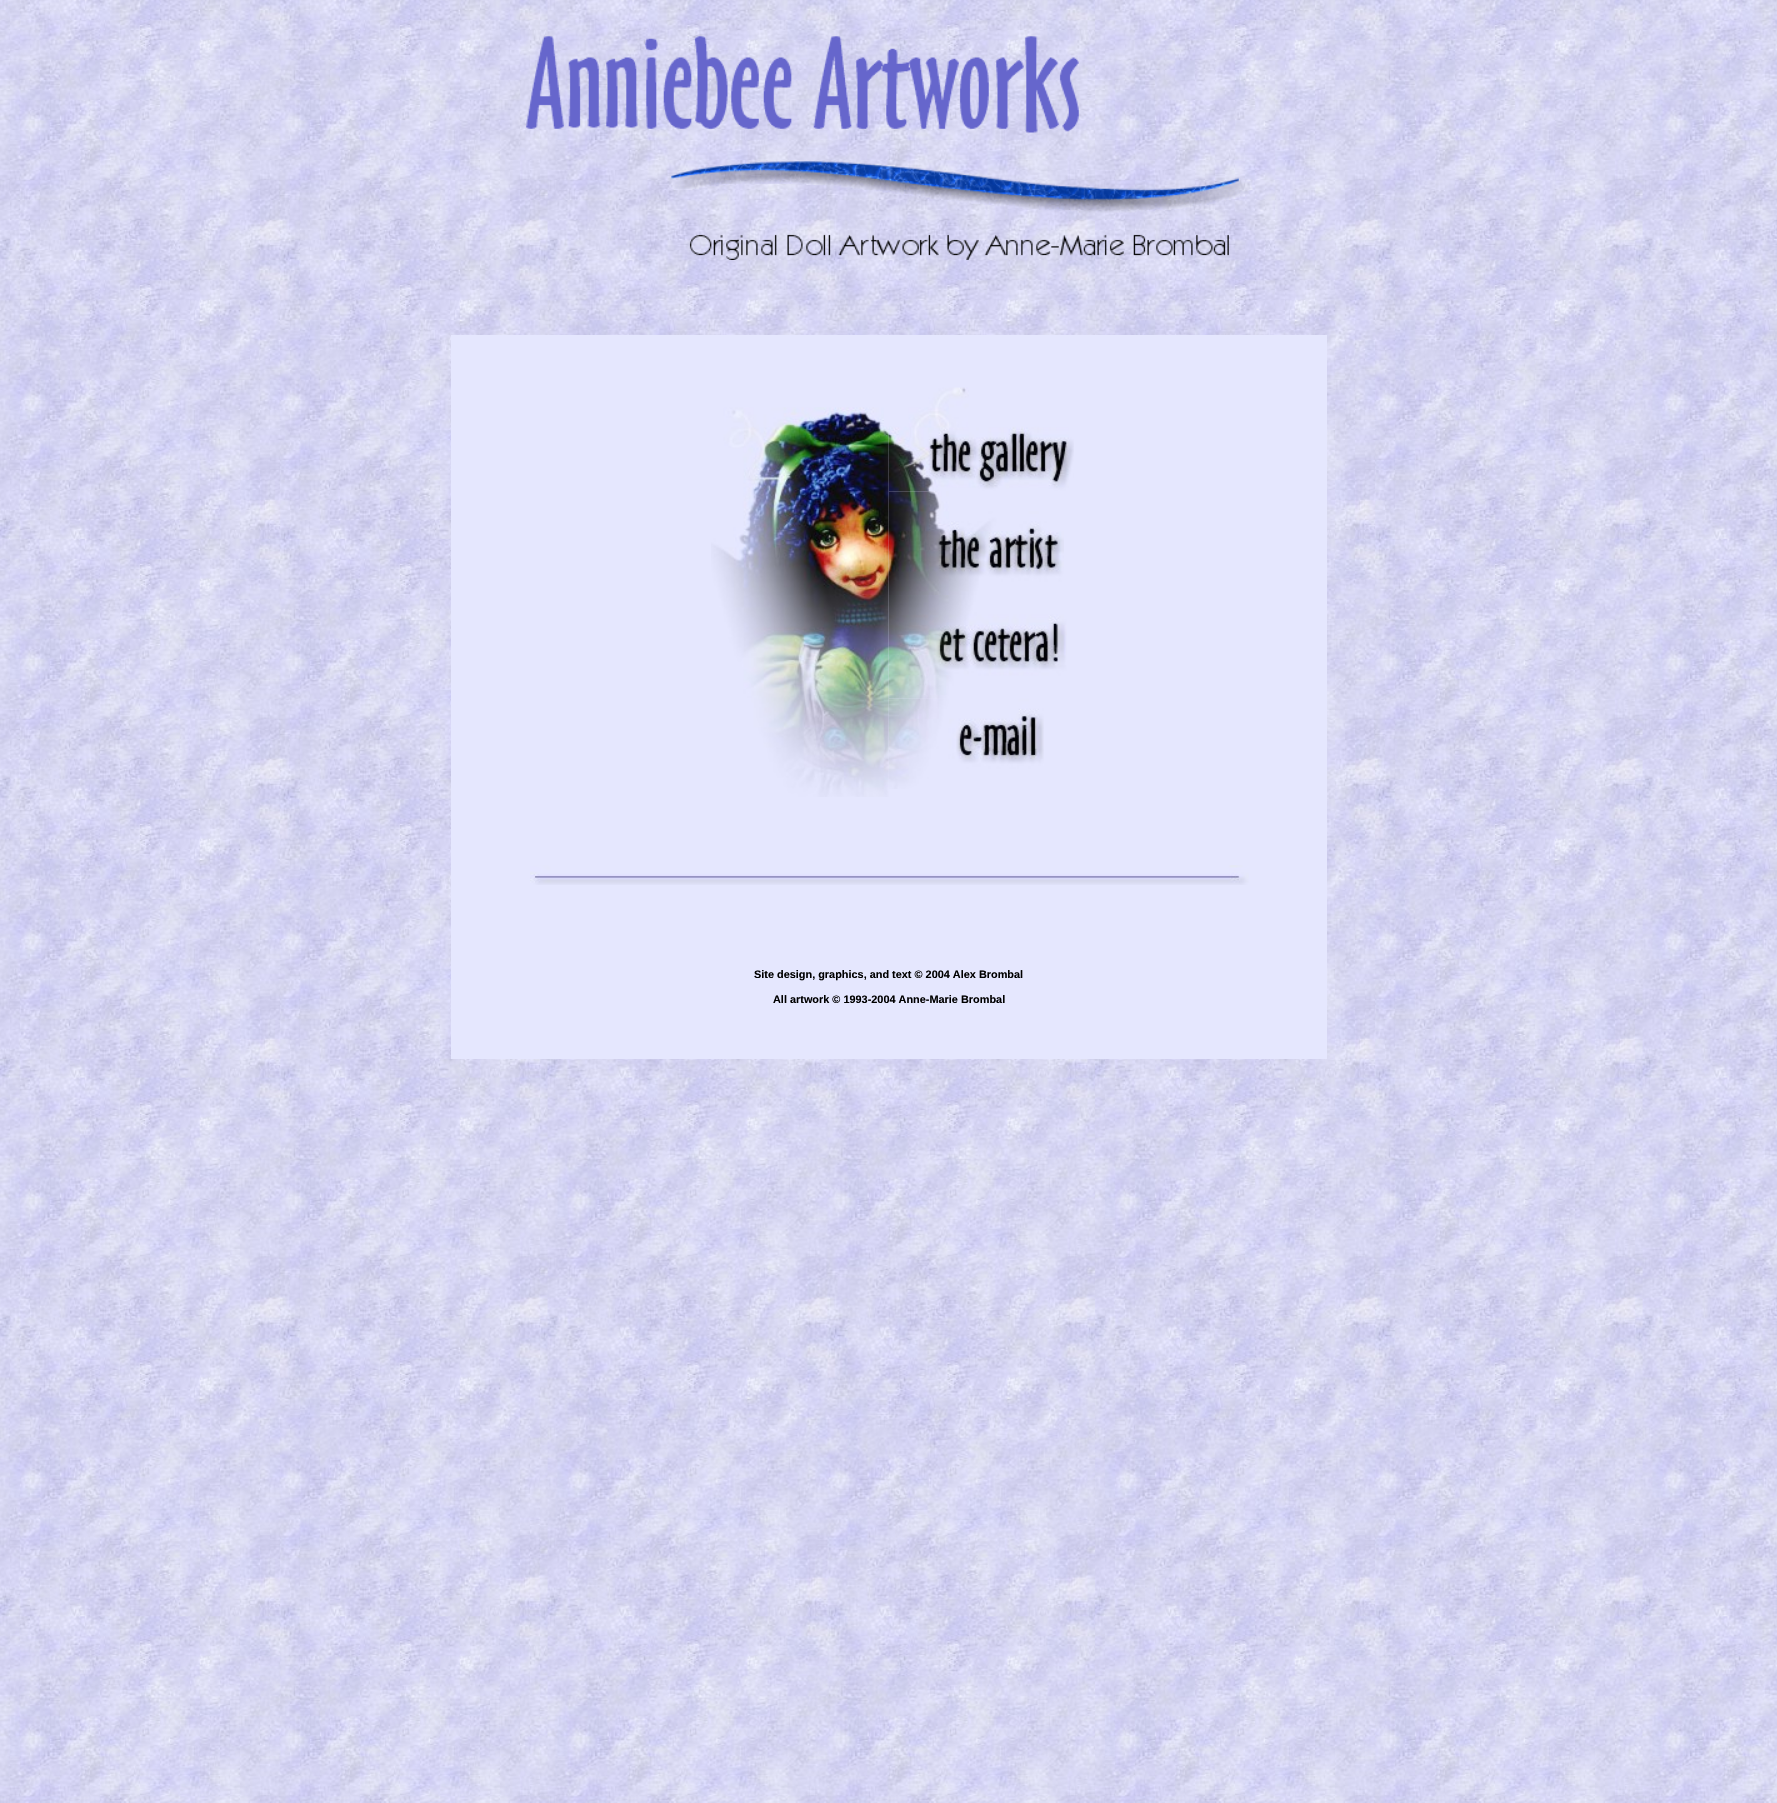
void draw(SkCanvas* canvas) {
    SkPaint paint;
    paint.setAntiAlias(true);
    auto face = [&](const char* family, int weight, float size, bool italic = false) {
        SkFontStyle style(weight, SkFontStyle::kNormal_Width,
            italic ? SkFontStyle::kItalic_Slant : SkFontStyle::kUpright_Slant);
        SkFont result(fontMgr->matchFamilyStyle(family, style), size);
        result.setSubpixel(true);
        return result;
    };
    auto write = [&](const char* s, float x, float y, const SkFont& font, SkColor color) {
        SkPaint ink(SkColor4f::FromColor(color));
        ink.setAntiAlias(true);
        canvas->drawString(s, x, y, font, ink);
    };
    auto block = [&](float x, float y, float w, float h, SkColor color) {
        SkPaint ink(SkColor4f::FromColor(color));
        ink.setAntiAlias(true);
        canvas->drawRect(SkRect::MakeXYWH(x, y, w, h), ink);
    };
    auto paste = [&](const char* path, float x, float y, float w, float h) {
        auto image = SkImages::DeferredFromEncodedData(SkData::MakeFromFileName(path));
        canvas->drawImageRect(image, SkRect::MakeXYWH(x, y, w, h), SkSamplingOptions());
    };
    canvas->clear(SK_ColorWHITE);
    paste("pic1.png", 0, 0, 1777, 1803);
    paste("pic2.png", 526, 36, 727, 224);
    block(451, 335, 876, 724, SkColorSetRGB(229, 231, 254));
    paste("pic3.png", 711, 407, 178, 390);
    paste("pic4.png", 888, 387, 186, 105);
    paste("pic5.png", 888, 491, 176, 104);
    paste("pic6.png", 888, 595, 179, 104);
    paste("pic7.png", 888, 698, 156, 91);
    paste("pic8.png", 530, 865, 719, 20);
    auto kFont1 = face("Liberation Sans", 700, 10.9f);
    write("Site design, graphics, and text © 2004 Alex Brombal", 754, 978, kFont1, SK_ColorBLACK);
    write("All artwork © 1993-2004 Anne-Marie Brombal", 773, 1003, kFont1, SK_ColorBLACK);
}
